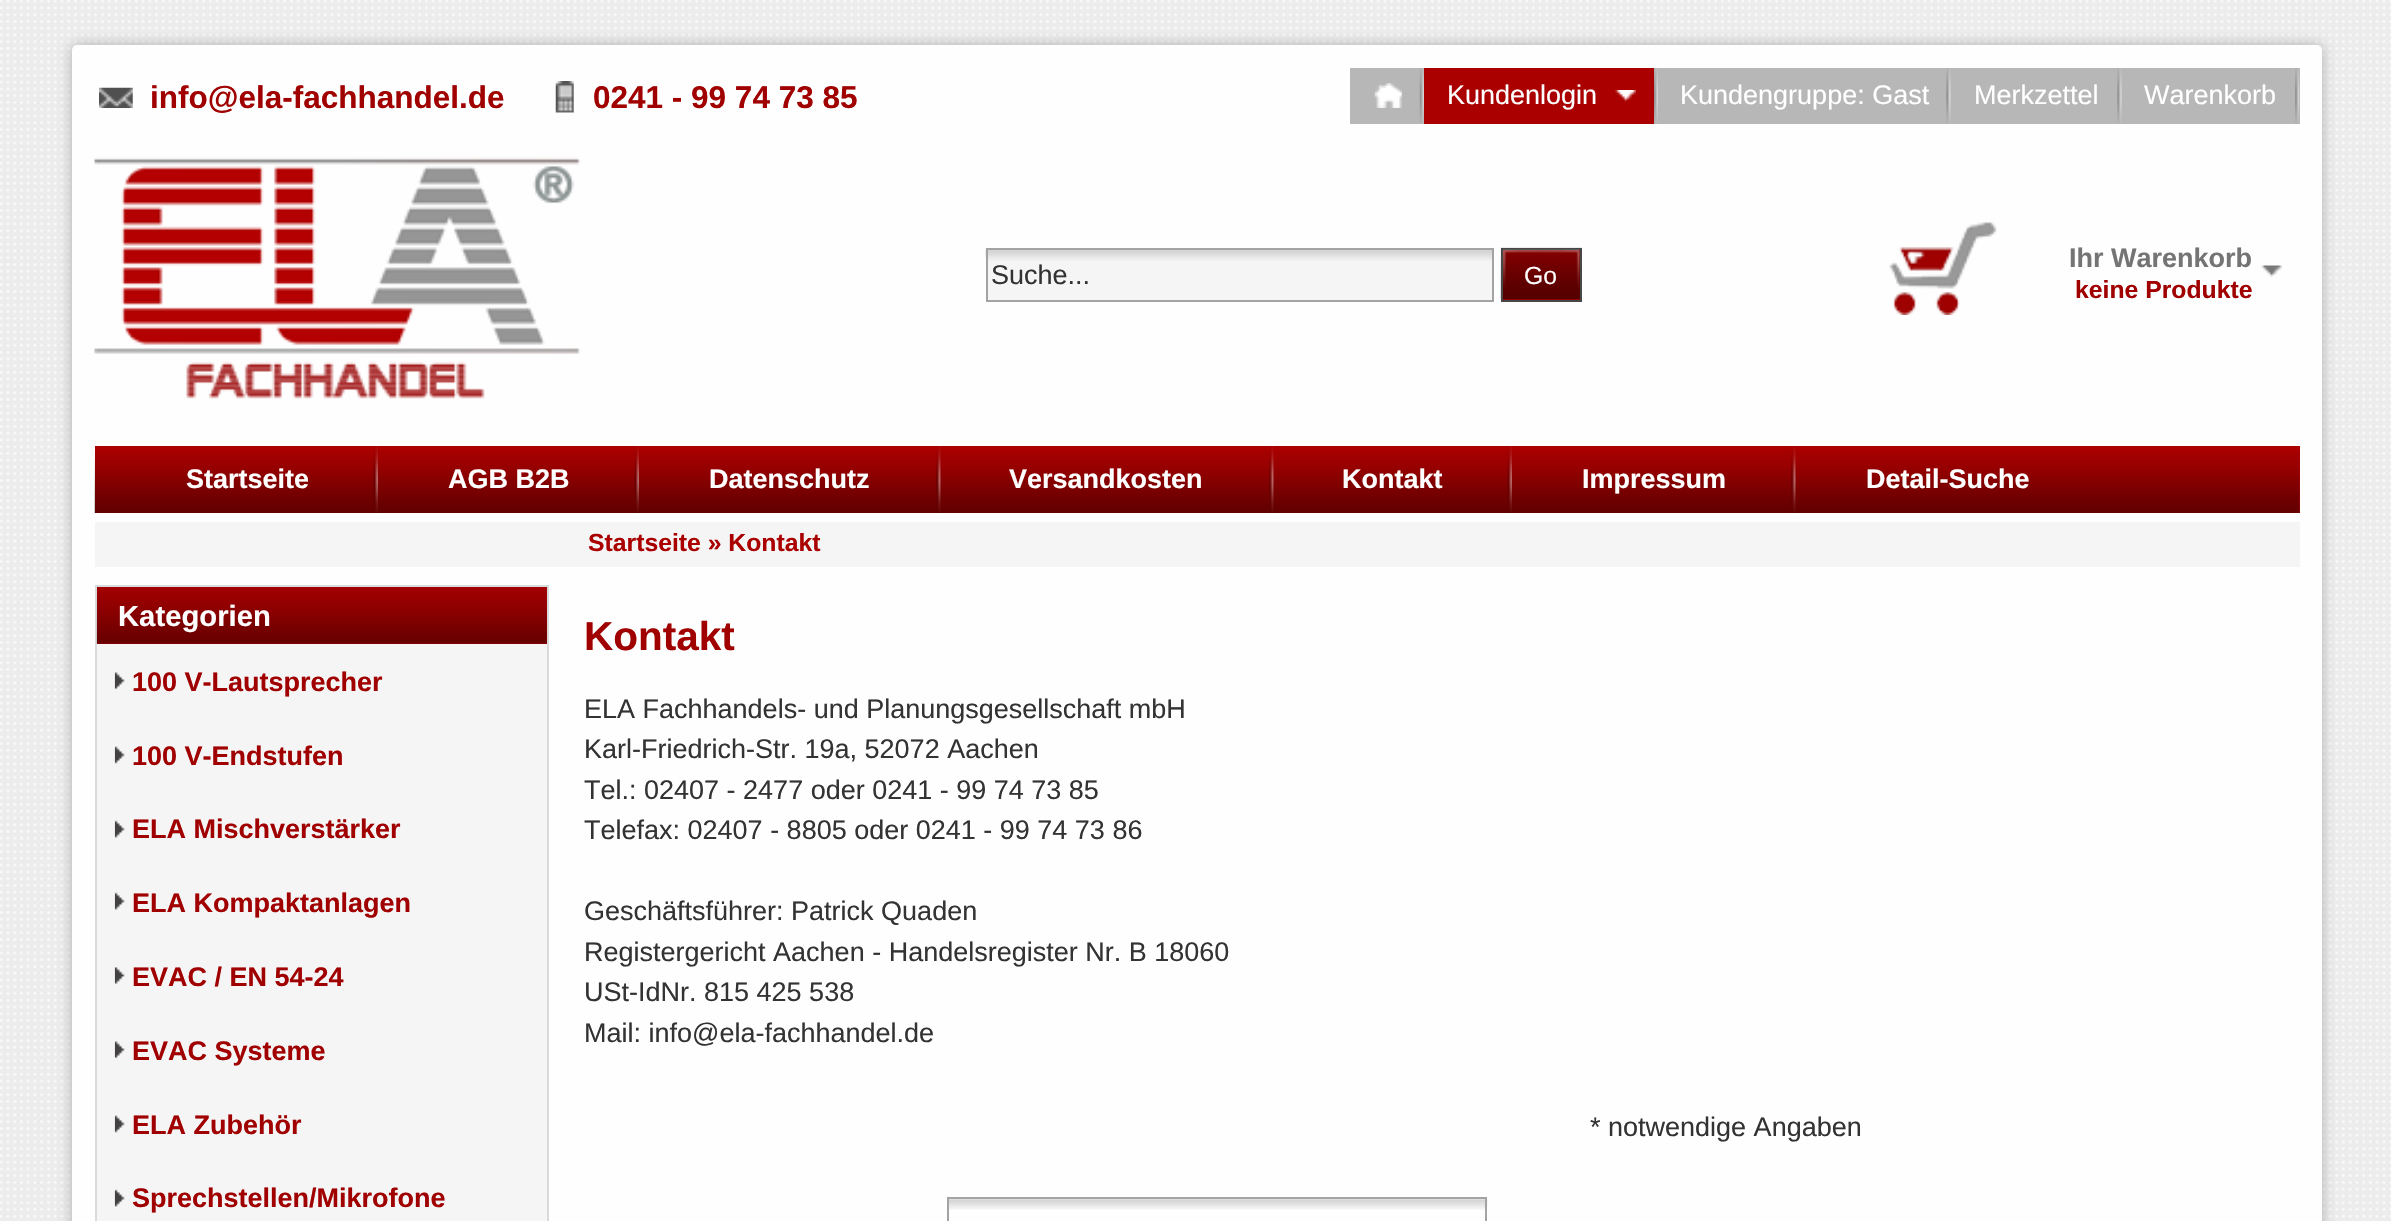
void draw(SkCanvas* canvas) {
    SkPaint paint;
    paint.setAntiAlias(true);
    auto face = [&](const char* family, int weight, float size, bool italic = false) {
        SkFontStyle style(weight, SkFontStyle::kNormal_Width,
            italic ? SkFontStyle::kItalic_Slant : SkFontStyle::kUpright_Slant);
        SkFont result(fontMgr->matchFamilyStyle(family, style), size);
        result.setSubpixel(true);
        return result;
    };
    auto write = [&](const char* s, float x, float y, const SkFont& font, SkColor color) {
        SkPaint ink(SkColor4f::FromColor(color));
        ink.setAntiAlias(true);
        canvas->drawString(s, x, y, font, ink);
    };
    auto block = [&](float x, float y, float w, float h, SkColor color) {
        SkPaint ink(SkColor4f::FromColor(color));
        ink.setAntiAlias(true);
        canvas->drawRect(SkRect::MakeXYWH(x, y, w, h), ink);
    };
    auto card = [&](float x, float y, float w, float h, float radius, SkColor color) {
        SkPaint ink(SkColor4f::FromColor(color));
        ink.setAntiAlias(true);
        canvas->drawRoundRect(SkRect::MakeXYWH(x, y, w, h), radius, radius, ink);
    };
    auto paste = [&](const char* path, float x, float y, float w, float h) {
        auto image = SkImages::DeferredFromEncodedData(SkData::MakeFromFileName(path));
        canvas->drawImageRect(image, SkRect::MakeXYWH(x, y, w, h), SkSamplingOptions());
    };
    canvas->clear(SK_ColorWHITE);
    paste("pic1.png", 0, 0, 2391, 1221);
    paint.setColor(SkColorSetRGB(173, 173, 173));
    paint.setMaskFilter(SkMaskFilter::MakeBlur(kNormal_SkBlurStyle, 7));
    canvas->drawRoundRect(SkRect::MakeXYWH(72, 45, 2250, 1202), 5, 5, paint);
    paint.setMaskFilter(nullptr);
    card(72, 45, 2250, 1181, 5, SkColorSetRGB(254, 254, 254));
    paste("pic2.png", 99, 87, 34, 21);
    auto kFont1 = face("Liberation Sans", 700, 31.5f);
    write("info@ela-fachhandel.de", 150, 108, kFont1, SkColorSetRGB(160, 0, 0));
    paste("pic3.png", 555, 81, 19, 32);
    write("0241 - 99 74 73 85", 593, 108, kFont1, SkColorSetRGB(160, 0, 0));
    block(1350, 68, 74, 56, SkColorSetRGB(183, 183, 183));
    paste("pic4.png", 1419, 68, 5, 55);
    paste("pic5.png", 1374, 83, 28, 25);
    block(1654, 68, 646, 56, SkColorSetRGB(183, 183, 183));
    paste("pic6.png", 1654, 68, 4, 55);
    block(1424, 68, 230, 56, SkColorSetRGB(170, 0, 0));
    auto kFont2 = face("Liberation Sans", 400, 27);
    write("Kundenlogin", 1447, 104, kFont2, SK_ColorWHITE);
    paste("pic7.png", 1615, 90, 21, 12);
    paste("pic8.png", 1946, 68, 5, 55);
    write("Kundengruppe: Gast", 1680, 104, kFont2, SK_ColorWHITE);
    paste("pic8.png", 2117, 68, 5, 55);
    write("Merkzettel", 1974, 104, kFont2, SK_ColorWHITE);
    paste("pic9.png", 2295, 68, 5, 55);
    write("Warenkorb", 2144, 104, kFont2, SK_ColorWHITE);
    paste("pic10.png", 94, 157, 487, 242);
    block(988, 250, 504, 50, SkColorSetRGB(245, 245, 245));
    paste("pic11.png", 985, 249, 507, 12);
    paint.setStyle(SkPaint::kStroke_Style);
    paint.setStrokeWidth(2);
    paint.setColor(SkColorSetRGB(163, 163, 163));
    canvas->drawRect(SkRect::MakeXYWH(987, 249, 506, 52), paint);
    write("Suche...", 991, 284, kFont2, SkColorSetRGB(51, 51, 51));
    block(1503, 250, 77, 50, SkColorSetRGB(160, 0, 0));
    paste("pic12.png", 1500, 247, 82, 53);
    paint.setColor(SkColorSetRGB(72, 72, 72));
    canvas->drawRect(SkRect::MakeXYWH(1502, 249, 79, 52), paint);
    paste("pic13.png", 1503, 249, 57, 38);
    paste("pic14.png", 1524, 249, 56, 38);
    auto kFont3 = face("Liberation Sans", 400, 24.75f);
    write("Go", 1524, 284, kFont3, SK_ColorWHITE);
    paste("pic15.png", 1889, 222, 108, 93);
    auto kFont4 = face("Liberation Sans", 700, 27);
    write("Ihr Warenkorb", 2069, 267, kFont4, SkColorSetRGB(116, 116, 116));
    auto kFont5 = face("Liberation Sans", 700, 24.75f);
    write("keine Produkte", 2075, 298, kFont5, SkColorSetRGB(160, 0, 0));
    paste("pic16.png", 2261, 265, 21, 12);
    block(95, 446, 2205, 67, SkColorSetRGB(170, 0, 0));
    paste("pic17.png", 94, 451, 2206, 62);
    paste("pic18.png", 373, 446, 5, 67);
    write("Startseite", 186, 488, kFont4, SK_ColorWHITE);
    paste("pic18.png", 634, 446, 5, 67);
    write("AGB B2B", 448, 488, kFont4, SK_ColorWHITE);
    paste("pic19.png", 936, 446, 5, 67);
    write("Datenschutz", 709, 488, kFont4, SK_ColorWHITE);
    paste("pic19.png", 1269, 446, 5, 67);
    write("Versandkosten", 1009, 488, kFont4, SK_ColorWHITE);
    paste("pic18.png", 1507, 446, 5, 67);
    write("Kontakt", 1342, 488, kFont4, SK_ColorWHITE);
    paste("pic19.png", 1791, 446, 5, 67);
    write("Impressum", 1582, 488, kFont4, SK_ColorWHITE);
    write("Detail-Suche", 1866, 488, kFont4, SK_ColorWHITE);
    block(95, 522, 2205, 45, SkColorSetRGB(245, 245, 245));
    write("Startseite » Kontakt", 588, 551, kFont5, SkColorSetRGB(170, 0, 0));
    paint.setColor(SkColorSetRGB(218, 218, 218));
    canvas->drawRect(SkRect::MakeXYWH(96, 586, 452, 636), paint);
    block(97, 587, 450, 57, SkColorSetRGB(160, 0, 0));
    paste("pic20.png", 96, 593, 451, 51);
    auto kFont6 = face("Liberation Sans", 700, 29.25f);
    write("Kategorien", 118, 626, kFont6, SK_ColorWHITE);
    block(97, 644, 450, 577, SkColorSetRGB(245, 245, 245));
    paste("pic21.png", 114, 672, 11, 18);
    write("100 V-Lautsprecher", 132, 691, kFont4, SkColorSetRGB(160, 0, 0));
    paste("pic22.png", 114, 746, 11, 18);
    write("100 V-Endstufen", 132, 765, kFont4, SkColorSetRGB(160, 0, 0));
    paste("pic23.png", 114, 820, 11, 18);
    write("ELA Mischverstärker", 132, 838, kFont4, SkColorSetRGB(160, 0, 0));
    paste("pic23.png", 114, 892, 11, 18);
    write("ELA Kompaktanlagen", 132, 912, kFont4, SkColorSetRGB(160, 0, 0));
    paste("pic24.png", 114, 967, 11, 17);
    write("EVAC / EN 54-24", 132, 986, kFont4, SkColorSetRGB(160, 0, 0));
    paste("pic21.png", 114, 1041, 11, 18);
    write("EVAC Systeme", 132, 1060, kFont4, SkColorSetRGB(160, 0, 0));
    paste("pic22.png", 114, 1115, 11, 18);
    write("ELA Zubehör", 132, 1134, kFont4, SkColorSetRGB(160, 0, 0));
    paste("pic23.png", 114, 1189, 11, 18);
    write("Sprechstellen/Mikrofone", 132, 1207, kFont4, SkColorSetRGB(160, 0, 0));
    auto kFont7 = face("Liberation Sans", 700, 40.5f);
    write("Kontakt", 584, 650, kFont7, SkColorSetRGB(160, 0, 0));
    write("ELA Fachhandels- und Planungsgesellschaft mbH", 584, 718, kFont2, SkColorSetRGB(51, 51, 51));
    write("Karl-Friedrich-Str. 19a, 52072 Aachen", 584, 758, kFont2, SkColorSetRGB(51, 51, 51));
    write("Tel.: 02407 - 2477 oder 0241 - 99 74 73 85", 584, 799, kFont2, SkColorSetRGB(51, 51, 51));
    write("Telefax: 02407 - 8805 oder 0241 - 99 74 73 86", 584, 839, kFont2, SkColorSetRGB(51, 51, 51));
    write("Geschäftsführer: Patrick Quaden", 584, 920, kFont2, SkColorSetRGB(51, 51, 51));
    write("Registergericht Aachen - Handelsregister Nr. B 18060", 584, 961, kFont2, SkColorSetRGB(51, 51, 51));
    write("USt-IdNr. 815 425 538", 584, 1001, kFont2, SkColorSetRGB(51, 51, 51));
    write("Mail: info@ela-fachhandel.de", 584, 1042, kFont2, SkColorSetRGB(51, 51, 51));
    write("* notwendige Angaben", 1590, 1136, kFont2, SkColorSetRGB(51, 51, 51));
    paste("pic25.png", 949, 1199, 539, 11);
    paint.setColor(SkColorSetRGB(163, 163, 163));
    canvas->drawRect(SkRect::MakeXYWH(948, 1198, 538, 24), paint);
}
